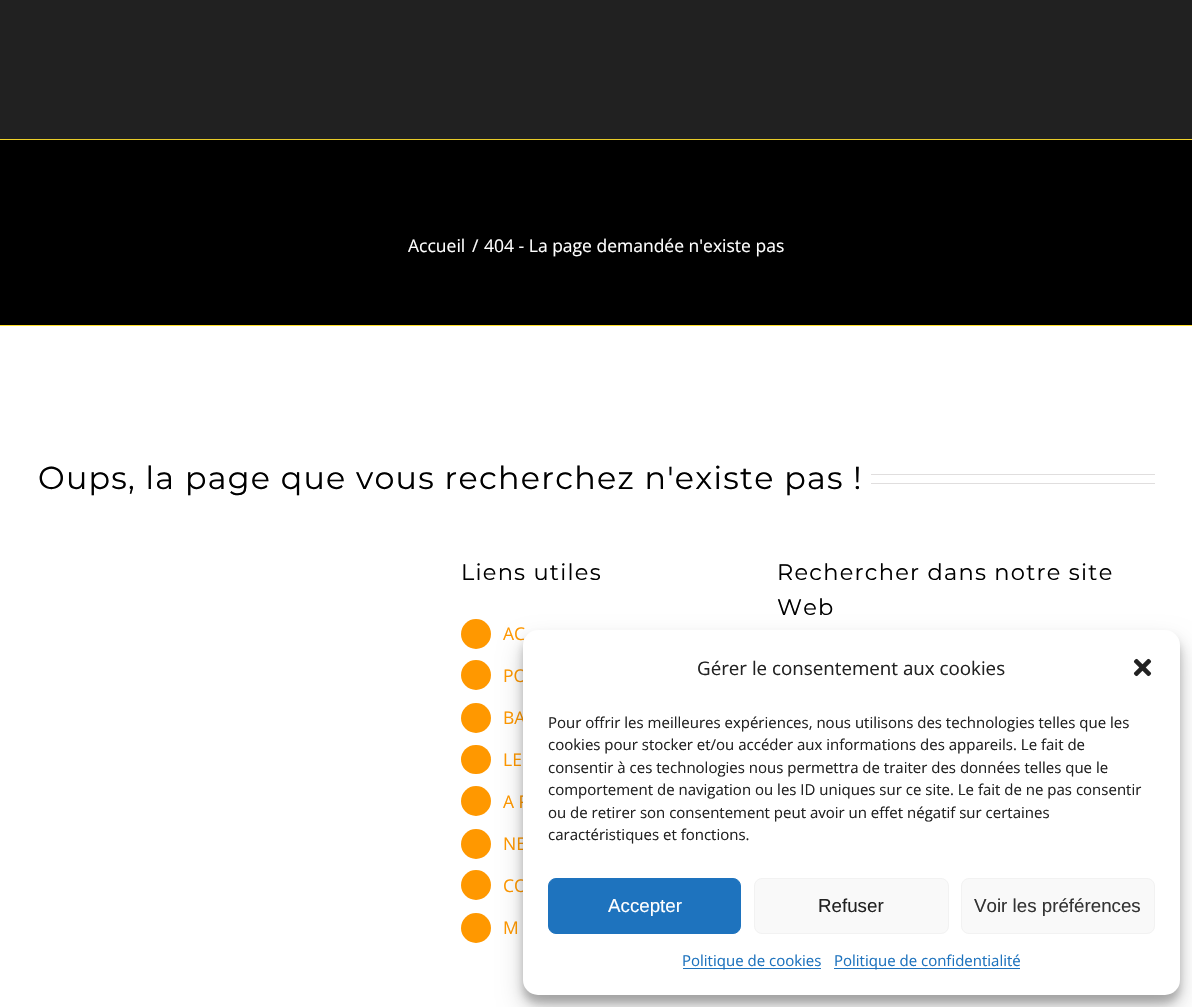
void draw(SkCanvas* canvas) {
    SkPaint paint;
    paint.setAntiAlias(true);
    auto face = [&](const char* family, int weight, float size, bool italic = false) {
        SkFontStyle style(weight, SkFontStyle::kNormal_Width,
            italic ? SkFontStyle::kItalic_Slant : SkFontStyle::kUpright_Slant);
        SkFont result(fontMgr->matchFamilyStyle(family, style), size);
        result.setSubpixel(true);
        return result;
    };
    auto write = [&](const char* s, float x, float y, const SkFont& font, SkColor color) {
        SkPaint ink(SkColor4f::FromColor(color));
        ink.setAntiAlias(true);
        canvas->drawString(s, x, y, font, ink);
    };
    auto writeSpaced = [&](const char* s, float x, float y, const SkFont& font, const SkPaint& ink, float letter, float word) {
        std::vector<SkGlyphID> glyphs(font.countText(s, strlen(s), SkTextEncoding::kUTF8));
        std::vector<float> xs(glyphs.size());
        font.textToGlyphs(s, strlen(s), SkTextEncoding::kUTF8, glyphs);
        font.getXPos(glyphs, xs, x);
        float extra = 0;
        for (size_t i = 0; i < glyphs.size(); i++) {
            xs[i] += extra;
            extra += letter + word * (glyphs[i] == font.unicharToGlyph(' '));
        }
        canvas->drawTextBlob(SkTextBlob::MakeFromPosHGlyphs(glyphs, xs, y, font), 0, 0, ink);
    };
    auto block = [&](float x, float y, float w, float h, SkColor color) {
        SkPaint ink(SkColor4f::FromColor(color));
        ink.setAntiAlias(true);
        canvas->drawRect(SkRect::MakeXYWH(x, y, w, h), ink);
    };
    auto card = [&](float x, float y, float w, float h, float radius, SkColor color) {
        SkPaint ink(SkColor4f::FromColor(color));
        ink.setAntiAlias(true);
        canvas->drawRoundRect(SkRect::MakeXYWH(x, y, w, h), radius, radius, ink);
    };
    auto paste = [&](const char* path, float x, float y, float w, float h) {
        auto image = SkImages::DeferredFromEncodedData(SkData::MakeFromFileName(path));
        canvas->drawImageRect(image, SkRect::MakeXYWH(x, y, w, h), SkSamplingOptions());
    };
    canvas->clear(SK_ColorWHITE);
    block(0, 140, 1192, 185, SK_ColorBLACK);
    block(0, 139, 1192, 1, SkColorSetRGB(255, 223, 44));
    paint.setColor(SkColorSetARGB(36, 0, 0, 0));
    paint.setMaskFilter(SkMaskFilter::MakeBlur(kNormal_SkBlurStyle, 31));
    canvas->drawRect(SkRect::MakeXYWH(3, 15, 1187, 134), paint);
    paint.setMaskFilter(nullptr);
    block(0, 0, 1192, 139, SkColorSetRGB(33, 33, 33));
    block(0, 325, 1192, 1, SkColorSetRGB(255, 223, 44));
    auto kFont1 = face("Open Sans", 400, 17.5f);
    write("Accueil", 408, 252, kFont1, SK_ColorWHITE);
    write("/", 472, 252, kFont1, SK_ColorWHITE);
    write("404 - La page demandée n'existe pas", 484, 252, kFont1, SK_ColorWHITE);
    auto kFont2 = face("Montserrat", 100, 31.75f);
    paint.setColor(SK_ColorBLACK);
    writeSpaced("Oups, la page que vous recherchez n'existe pas !", 38, 489, kFont2, paint, 1.25f, 0);
    block(871, 474, 284, 1, SkColorSetRGB(224, 222, 222));
    block(871, 483, 284, 1, SkColorSetRGB(224, 222, 222));
    auto kFont3 = face("Montserrat", 100, 22.5f);
    writeSpaced("Liens utiles", 461, 580, kFont3, paint, 1.25f, 0);
    paint.setColor(SkColorSetRGB(255, 152, 0));
    canvas->drawCircle(476, 634, 15, paint);
    write("AC", 503, 640, kFont1, SkColorSetRGB(255, 152, 0));
    canvas->drawCircle(476, 675, 15, paint);
    write("PO", 503, 682, kFont1, SkColorSetRGB(255, 152, 0));
    canvas->drawCircle(476, 718, 15, paint);
    write("BA", 503, 724, kFont1, SkColorSetRGB(255, 152, 0));
    card(461, 745, 30, 29, 14.5f, SkColorSetRGB(255, 152, 0));
    write("LE", 503, 766, kFont1, SkColorSetRGB(255, 152, 0));
    canvas->drawCircle(476, 801, 15, paint);
    write("A P", 503, 808, kFont1, SkColorSetRGB(255, 152, 0));
    canvas->drawCircle(476, 844, 15, paint);
    write("NE", 503, 850, kFont1, SkColorSetRGB(255, 152, 0));
    canvas->drawCircle(476, 885, 15, paint);
    write("CO", 503, 892, kFont1, SkColorSetRGB(255, 152, 0));
    canvas->drawCircle(476, 928, 15, paint);
    write("M", 503, 934, kFont1, SkColorSetRGB(255, 152, 0));
    paint.setColor(SK_ColorBLACK);
    writeSpaced("Rechercher dans notre site", 777, 580, kFont3, paint, 1.25f, 0);
    writeSpaced("Web", 777, 615, kFont3, paint, 1.25f, 0);
    paint.setColor(SkColorSetARGB(59, 0, 0, 0));
    paint.setMaskFilter(SkMaskFilter::MakeBlur(kNormal_SkBlurStyle, 4));
    canvas->drawRoundRect(SkRect::MakeXYWH(523, 638, 657, 365), 15, 15, paint);
    paint.setMaskFilter(nullptr);
    paint.setColor(SkColorSetARGB(48, 0, 0, 0));
    paint.setMaskFilter(SkMaskFilter::MakeBlur(kNormal_SkBlurStyle, 12.5f));
    canvas->drawRoundRect(SkRect::MakeXYWH(523, 643, 657, 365), 15, 15, paint);
    paint.setMaskFilter(nullptr);
    card(523, 630, 657, 365, 15, SK_ColorWHITE);
    auto kFont4 = face("Open Sans", 400, 18.75f);
    write("Gérer le consentement aux cookies", 697, 675, kFont4, SkColorSetRGB(34, 34, 34));
    paste("pic1.png", 1133, 658, 19, 19);
    auto kFont5 = face("Open Sans", 400, 15);
    write("Pour offrir les meilleures expériences, nous utilisons des technologies telles que les", 548, 728, kFont5, SkColorSetRGB(34, 34, 34));
    write("cookies pour stocker et/ou accéder aux informations des appareils. Le fait de", 548, 750, kFont5, SkColorSetRGB(34, 34, 34));
    write("consentir à ces technologies nous permettra de traiter des données telles que le", 548, 773, kFont5, SkColorSetRGB(34, 34, 34));
    write("comportement de navigation ou les ID uniques sur ce site. Le fait de ne pas consentir", 548, 795, kFont5, SkColorSetRGB(34, 34, 34));
    write("ou de retirer son consentement peut avoir un effet négatif sur certaines", 548, 818, kFont5, SkColorSetRGB(34, 34, 34));
    write("caractéristiques et fonctions.", 548, 840, kFont5, SkColorSetRGB(34, 34, 34));
    paint.setColor(SkColorSetRGB(30, 115, 190));
    canvas->drawRoundRect(SkRect::MakeXYWH(548.5f, 878.5f, 192, 55), 7.5f, 7.5f, paint);
    paint.setStyle(SkPaint::kStroke_Style);
    paint.setStrokeWidth(1);
    canvas->drawRoundRect(SkRect::MakeXYWH(548.5f, 878.5f, 192, 55), 7.5f, 7.5f, paint);
    auto kFont6 = face("Liberation Sans", 400, 18.75f);
    write("Accepter", 608, 912, kFont6, SK_ColorWHITE);
    paint.setStyle(SkPaint::kFill_Style);
    paint.setColor(SkColorSetRGB(249, 249, 249));
    canvas->drawRoundRect(SkRect::MakeXYWH(754.5f, 878.5f, 194, 55), 7.5f, 7.5f, paint);
    paint.setStyle(SkPaint::kStroke_Style);
    paint.setColor(SkColorSetRGB(242, 242, 242));
    canvas->drawRoundRect(SkRect::MakeXYWH(754.5f, 878.5f, 194, 55), 7.5f, 7.5f, paint);
    write("Refuser", 818, 912, kFont6, SkColorSetRGB(34, 34, 34));
    paint.setStyle(SkPaint::kFill_Style);
    paint.setColor(SkColorSetRGB(249, 249, 249));
    canvas->drawRoundRect(SkRect::MakeXYWH(961.5f, 878.5f, 193, 55), 7.5f, 7.5f, paint);
    paint.setStyle(SkPaint::kStroke_Style);
    paint.setColor(SkColorSetRGB(242, 242, 242));
    canvas->drawRoundRect(SkRect::MakeXYWH(961.5f, 878.5f, 193, 55), 7.5f, 7.5f, paint);
    write("Voir les préférences", 974, 912, kFont6, SkColorSetRGB(51, 51, 51));
    block(683, 968, 138, 1, SkColorSetRGB(30, 115, 190));
    write("Politique de cookies", 682, 966, kFont5, SkColorSetRGB(30, 115, 190));
    block(834, 968, 186, 1, SkColorSetRGB(30, 115, 190));
    write("Politique de confidentialité", 834, 966, kFont5, SkColorSetRGB(30, 115, 190));
}
